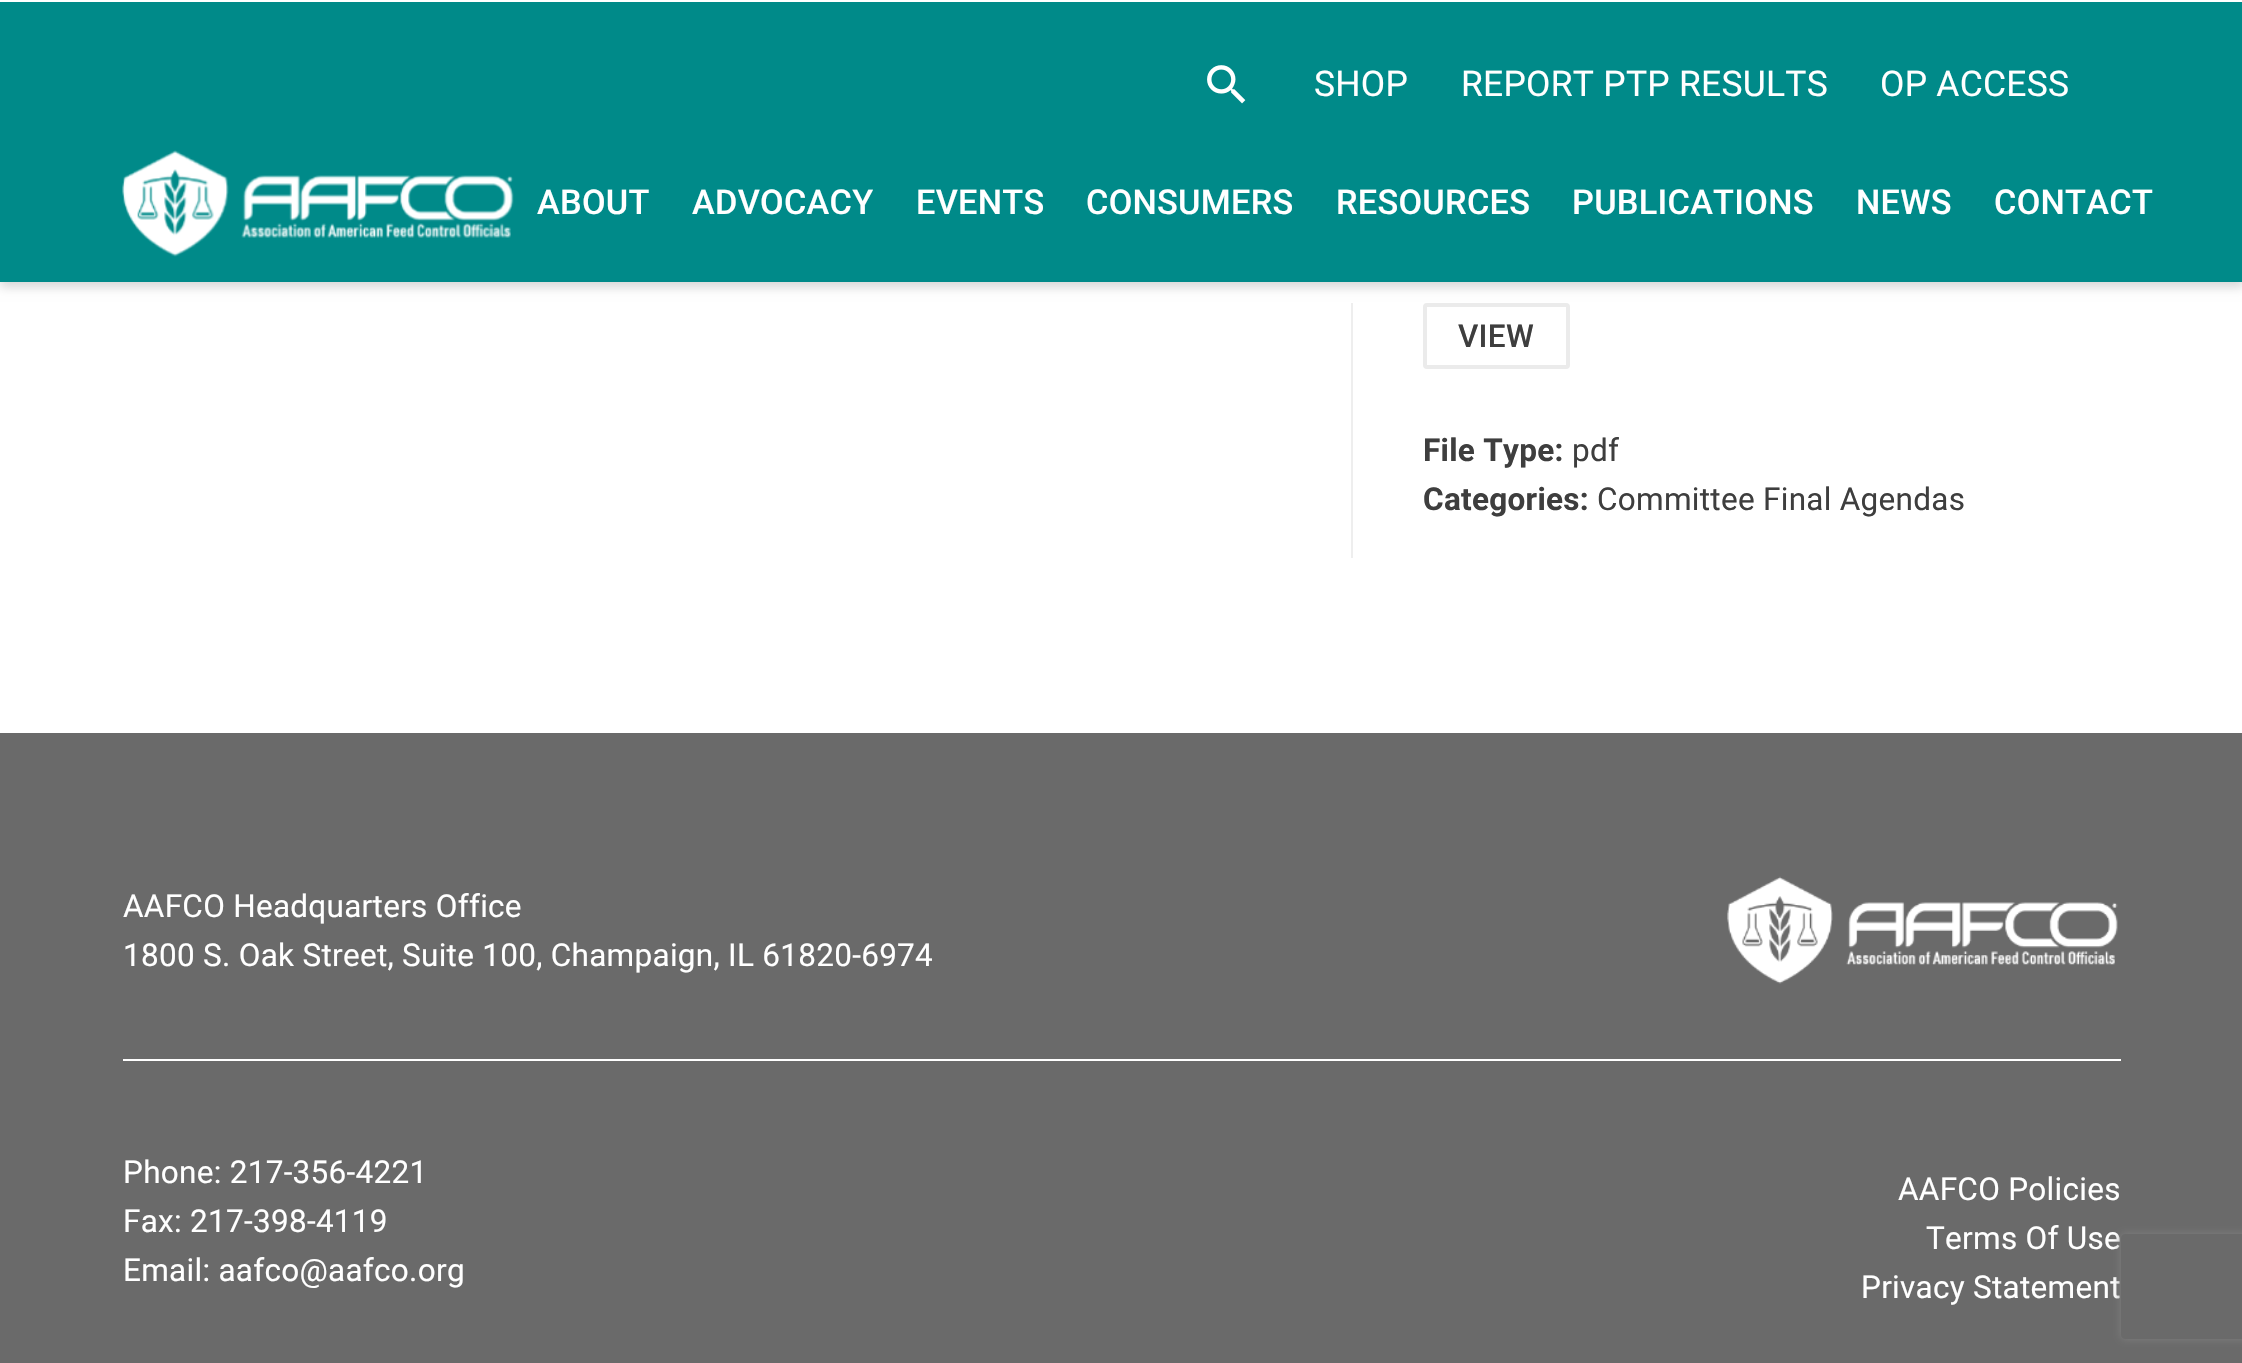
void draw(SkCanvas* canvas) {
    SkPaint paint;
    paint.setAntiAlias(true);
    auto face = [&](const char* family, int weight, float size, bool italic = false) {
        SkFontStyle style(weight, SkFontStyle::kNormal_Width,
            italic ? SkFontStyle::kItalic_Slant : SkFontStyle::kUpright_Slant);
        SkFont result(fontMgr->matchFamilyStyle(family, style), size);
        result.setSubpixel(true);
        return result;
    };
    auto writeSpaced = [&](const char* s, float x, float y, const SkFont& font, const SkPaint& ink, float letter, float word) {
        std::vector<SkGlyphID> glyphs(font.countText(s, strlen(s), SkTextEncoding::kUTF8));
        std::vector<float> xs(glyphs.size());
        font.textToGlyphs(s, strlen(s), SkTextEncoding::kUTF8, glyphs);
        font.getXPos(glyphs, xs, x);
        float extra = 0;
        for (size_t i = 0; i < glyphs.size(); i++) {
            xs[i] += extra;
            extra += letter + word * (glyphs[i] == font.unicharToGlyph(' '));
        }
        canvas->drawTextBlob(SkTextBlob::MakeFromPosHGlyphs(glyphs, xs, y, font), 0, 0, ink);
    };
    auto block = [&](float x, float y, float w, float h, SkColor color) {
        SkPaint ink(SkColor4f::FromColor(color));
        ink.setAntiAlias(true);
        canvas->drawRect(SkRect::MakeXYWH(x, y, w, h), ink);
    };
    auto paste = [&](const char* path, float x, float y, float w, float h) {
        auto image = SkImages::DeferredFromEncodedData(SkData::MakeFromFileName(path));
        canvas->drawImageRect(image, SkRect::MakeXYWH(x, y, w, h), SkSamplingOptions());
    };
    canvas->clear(SK_ColorWHITE);
    paint.setColor(SkColorSetARGB(41, 0, 0, 0));
    paint.setMaskFilter(SkMaskFilter::MakeBlur(kNormal_SkBlurStyle, 5));
    canvas->drawRect(SkRect::MakeXYWH(0, 5, 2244, 282), paint);
    paint.setMaskFilter(nullptr);
    block(0, 2, 2242, 280, SkColorSetRGB(0, 138, 137));
    block(0, 0, 2242, 2, SK_ColorWHITE);
    paste("pic1.png", 1207, 65, 39, 39);
    auto kFont1 = face("Roboto", 400, 35.4f);
    paint.setColor(SK_ColorWHITE);
    writeSpaced("SHOP", 1314, 96, kFont1, paint, 0.28f, 0);
    writeSpaced("REPORT PTP RESULTS", 1461, 96, kFont1, paint, 0.28f, 0);
    writeSpaced("OP ACCESS", 1880, 96, kFont1, paint, 0.28f, 0);
    paste("pic2.png", 122, 150, 392, 107);
    auto kFont2 = face("Roboto", 500, 34.25f);
    writeSpaced("ABOUT", 537, 214, kFont2, paint, 0.28f, 0);
    writeSpaced("ADVOCACY", 692, 214, kFont2, paint, 0.28f, 0);
    writeSpaced("EVENTS", 916, 214, kFont2, paint, 0.28f, 0);
    writeSpaced("CONSUMERS", 1086, 214, kFont2, paint, 0.28f, 0);
    writeSpaced("RESOURCES", 1336, 214, kFont2, paint, 0.28f, 0);
    writeSpaced("PUBLICATIONS", 1572, 214, kFont2, paint, 0.28f, 0);
    writeSpaced("NEWS", 1856, 214, kFont2, paint, 0.28f, 0);
    writeSpaced("CONTACT", 1994, 214, kFont2, paint, 0.28f, 0);
    block(1351, 303, 2, 255, SkColorSetRGB(238, 238, 238));
    paint.setStyle(SkPaint::kStroke_Style);
    paint.setStrokeWidth(4);
    paint.setColor(SkColorSetRGB(235, 235, 235));
    canvas->drawRoundRect(SkRect::MakeXYWH(1425, 305, 143, 62), 2, 2, paint);
    auto kFont3 = face("Roboto", 500, 31.5f);
    paint.setStyle(SkPaint::kFill_Style);
    paint.setColor(SkColorSetRGB(62, 62, 62));
    writeSpaced("VIEW", 1458, 347, kFont3, paint, 0.28f, 0);
    auto kFont4 = face("Roboto", 700, 31.5f);
    writeSpaced("File Type:", 1423, 461, kFont4, paint, 0.28f, 0);
    auto kFont5 = face("Roboto", 400, 31.5f);
    writeSpaced("pdf", 1572, 461, kFont5, paint, 0.28f, 0);
    writeSpaced("Categories:", 1423, 510, kFont4, paint, 0.28f, 0);
    writeSpaced("Committee Final Agendas", 1597, 510, kFont5, paint, 0.28f, 0);
    block(0, 733, 2242, 630, SkColorSetRGB(106, 106, 106));
    paint.setColor(SK_ColorWHITE);
    writeSpaced("AAFCO Headquarters Office", 123, 917, kFont5, paint, 0.28f, 0);
    writeSpaced("1800 S. Oak Street, Suite 100, Champaign, IL 61820-6974", 123, 966, kFont5, paint, 0.28f, 0);
    paste("pic3.png", 1727, 876, 391, 108);
    block(123, 1059, 1998, 2, SK_ColorWHITE);
    writeSpaced("Phone: 217-356-4221", 123, 1183, kFont5, paint, 0.28f, 0);
    writeSpaced("Fax: 217-398-4119", 123, 1232, kFont5, paint, 0.28f, 0);
    writeSpaced("Email: aafco@aafco.org", 123, 1281, kFont5, paint, 0.28f, 0);
    writeSpaced("AAFCO Policies", 1898, 1200, kFont5, paint, 0.28f, 0);
    writeSpaced("Terms Of Use", 1926, 1249, kFont5, paint, 0.28f, 0);
    writeSpaced("Privacy Statement", 1861, 1298, kFont5, paint, 0.28f, 0);
    canvas->save();
    canvas->clipPath(SkPathBuilder(SkPathFillType::kEvenOdd).moveTo(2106, 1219).lineTo(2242, 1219).lineTo(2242, 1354).lineTo(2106, 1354).close().moveTo(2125, 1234).lineTo(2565, 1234).cubicTo(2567, 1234, 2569, 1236, 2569, 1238).lineTo(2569, 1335).cubicTo(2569, 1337, 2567, 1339, 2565, 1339).lineTo(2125, 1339).cubicTo(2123, 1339, 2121, 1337, 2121, 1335).lineTo(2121, 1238).cubicTo(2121, 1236, 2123, 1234, 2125, 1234).close().detach(), true);
    paint.setColor(SkColorSetRGB(128, 128, 128));
    paint.setMaskFilter(SkMaskFilter::MakeBlur(kNormal_SkBlurStyle, 4.5f));
    canvas->drawRoundRect(SkRect::MakeXYWH(2121, 1234, 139, 105), 4, 4, paint);
    paint.setMaskFilter(nullptr);
    canvas->restore();
}
